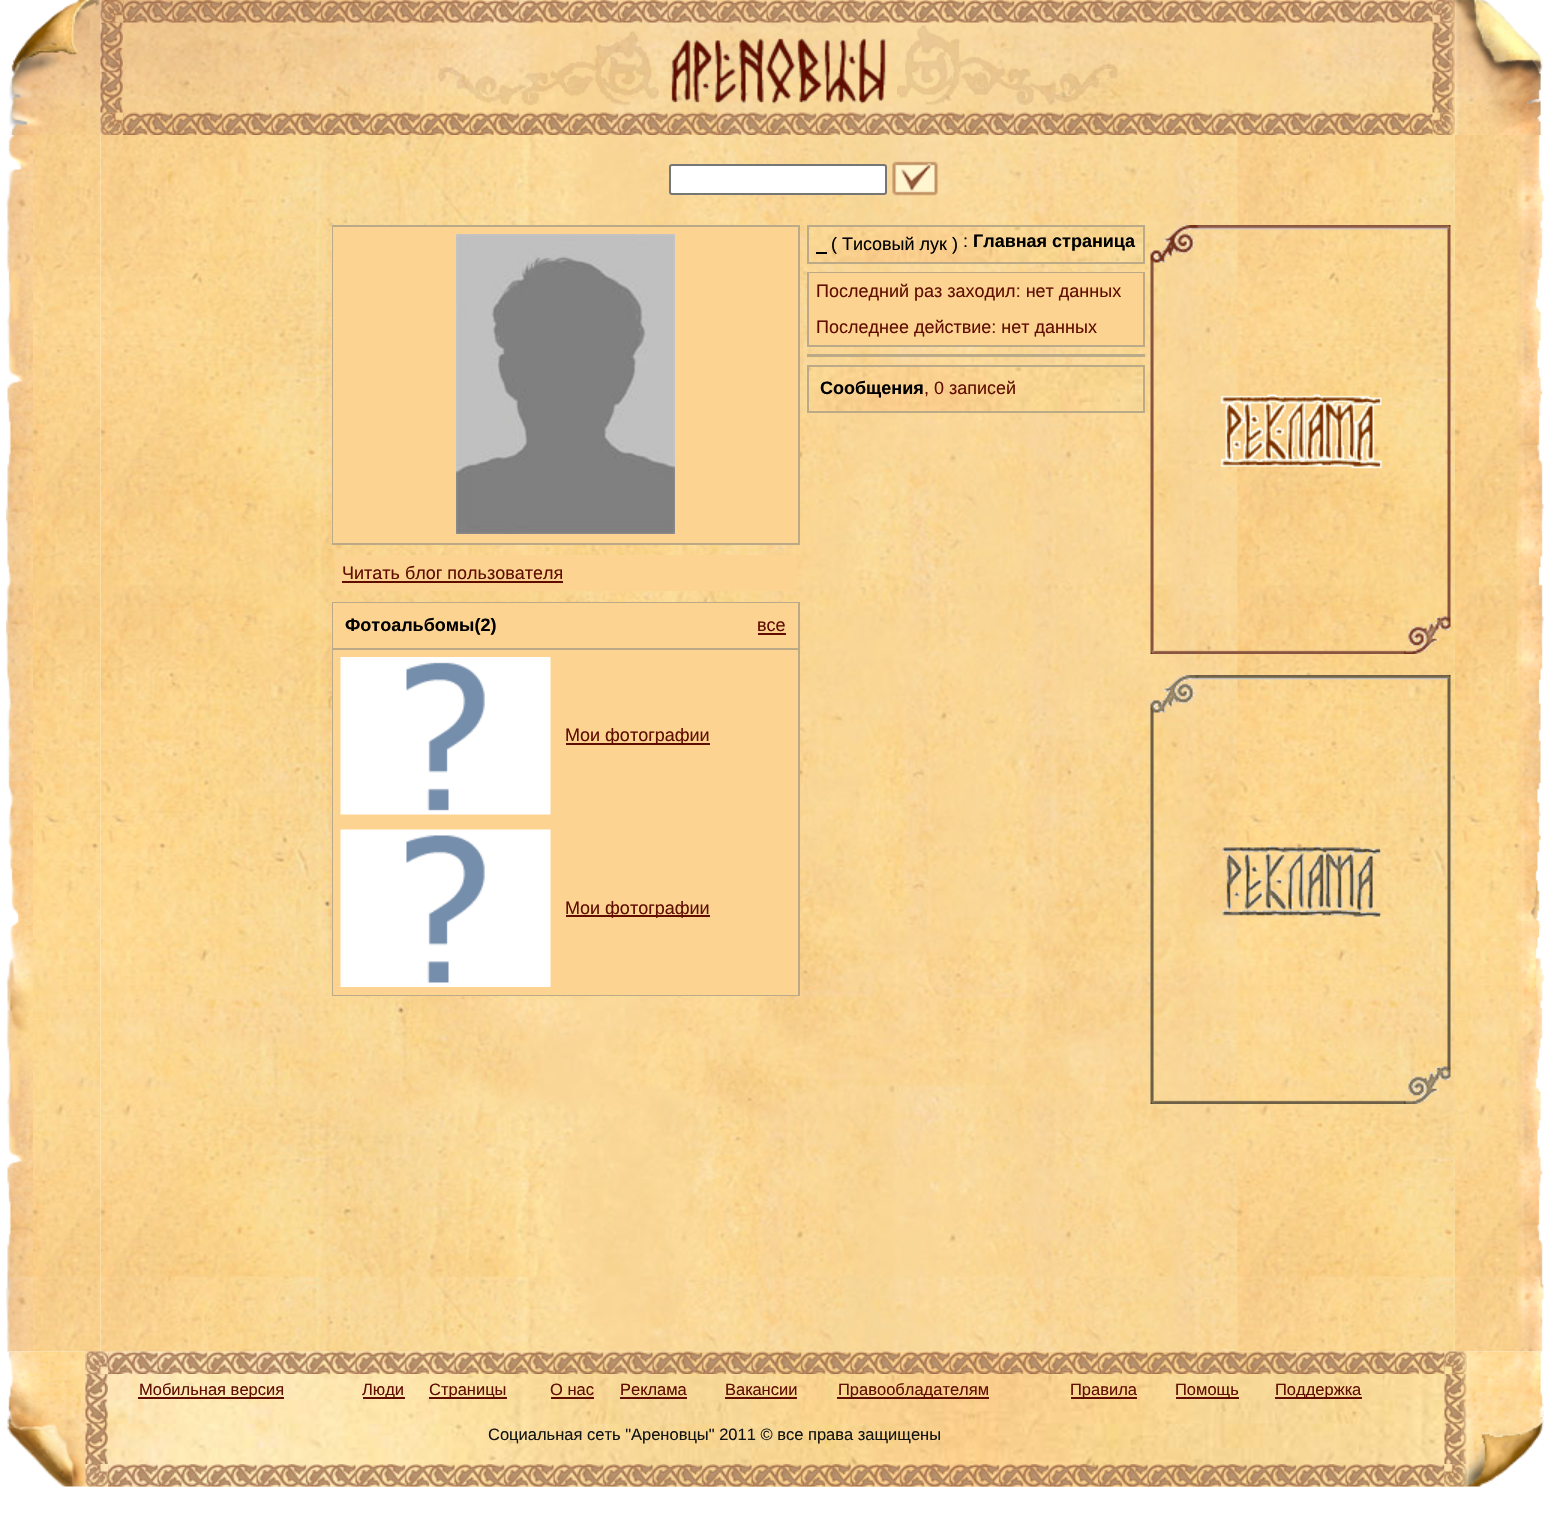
void draw(SkCanvas* canvas) {
    SkPaint paint;
    paint.setAntiAlias(true);
    auto face = [&](const char* family, int weight, float size, bool italic = false) {
        SkFontStyle style(weight, SkFontStyle::kNormal_Width,
            italic ? SkFontStyle::kItalic_Slant : SkFontStyle::kUpright_Slant);
        SkFont result(fontMgr->matchFamilyStyle(family, style), size);
        result.setSubpixel(true);
        return result;
    };
    auto write = [&](const char* s, float x, float y, const SkFont& font, SkColor color) {
        SkPaint ink(SkColor4f::FromColor(color));
        ink.setAntiAlias(true);
        canvas->drawString(s, x, y, font, ink);
    };
    auto block = [&](float x, float y, float w, float h, SkColor color) {
        SkPaint ink(SkColor4f::FromColor(color));
        ink.setAntiAlias(true);
        canvas->drawRect(SkRect::MakeXYWH(x, y, w, h), ink);
    };
    auto paste = [&](const char* path, float x, float y, float w, float h) {
        auto image = SkImages::DeferredFromEncodedData(SkData::MakeFromFileName(path));
        canvas->drawImageRect(image, SkRect::MakeXYWH(x, y, w, h), SkSamplingOptions());
    };
    canvas->clear(SK_ColorWHITE);
    paste("pic1.png", 9, 0, 92, 135);
    paste("pic2.png", 100, 0, 1355, 135);
    paste("pic6.png", 100, 22, 23, 91);
    paste("pic3.png", 100, 0, 23, 23);
    paste("pic4.png", 123, 0, 1310, 23);
    paste("pic10.png", 1432, 22, 23, 91);
    paste("pic5.png", 1432, 0, 23, 23);
    paste("pic7.png", 438, 31, 221, 74);
    paste("pic8.png", 671, 38, 215, 66);
    paste("pic9.png", 897, 25, 221, 80);
    paste("pic11.png", 100, 112, 23, 23);
    paste("pic12.png", 123, 112, 1310, 23);
    paste("pic13.png", 1432, 112, 23, 23);
    paste("pic14.png", 1449, 0, 94, 135);
    paste("pic15.png", 6, 135, 27, 1217);
    paste("pic16.png", 33, 135, 68, 1217);
    paste("pic17.png", 100, 135, 1355, 1217);
    paint.setColor(SK_ColorWHITE);
    canvas->drawRoundRect(SkRect::MakeXYWH(670, 165, 216, 29), 2, 2, paint);
    paint.setStyle(SkPaint::kStroke_Style);
    paint.setStrokeWidth(2);
    paint.setColor(SkColorSetRGB(118, 118, 118));
    canvas->drawRoundRect(SkRect::MakeXYWH(670, 165, 216, 29), 2, 2, paint);
    paste("pic18.png", 892, 161, 46, 35);
    paste("pic19.png", 809, 227, 334, 35);
    paint.setColor(SkColorSetRGB(187, 170, 136));
    canvas->drawRect(SkRect::MakeXYWH(808, 226, 336, 37), paint);
    auto kFont1 = face("Liberation Sans", 400, 18);
    write("( Тисовый лук )", 831, 250, kFont1, SK_ColorBLACK);
    block(816, 252, 11, 2, SK_ColorBLACK);
    write(":", 963, 247, kFont1, SK_ColorBLACK);
    auto kFont2 = face("Liberation Sans", 700, 18);
    write("Главная страница", 973, 247, kFont2, SK_ColorBLACK);
    canvas->drawRect(SkRect::MakeXYWH(808, 273, 336, 73), paint);
    block(809, 273, 334, 72, SkColorSetRGB(252, 211, 145));
    write("Последний раз заходил: нет данных", 816, 297, kFont1, SkColorSetRGB(96, 13, 0));
    write("Последнее действие: нет данных", 816, 333, kFont1, SkColorSetRGB(96, 13, 0));
    block(807, 354, 338, 3, SkColorSetRGB(187, 170, 136));
    paste("pic20.png", 807, 364, 338, 47);
    block(807, 365, 338, 2, SkColorSetRGB(187, 170, 136));
    block(1143, 365, 2, 48, SkColorSetRGB(187, 170, 136));
    block(807, 365, 2, 48, SkColorSetRGB(187, 170, 136));
    block(809, 411, 334, 2, SkColorSetRGB(187, 170, 136));
    write("Сообщения", 820, 394, kFont2, SK_ColorBLACK);
    write(", 0 записей", 924, 394, kFont1, SkColorSetRGB(96, 13, 0));
    canvas->drawRect(SkRect::MakeXYWH(333, 226, 466, 318), paint);
    block(333, 227, 465, 316, SkColorSetRGB(252, 211, 145));
    paste("pic21.png", 456, 234, 219, 300);
    block(335, 555, 462, 36, SkColorSetRGB(252, 211, 145));
    write("Читать блог пользователя", 342, 579, kFont1, SkColorSetRGB(96, 13, 0));
    block(342, 581, 221, 2, SkColorSetRGB(96, 13, 0));
    canvas->drawRect(SkRect::MakeXYWH(333, 603, 466, 392), paint);
    block(333, 603, 465, 45, SkColorSetRGB(252, 211, 145));
    block(333, 648, 465, 2, SkColorSetRGB(187, 170, 136));
    write("Фотоальбомы(2)", 345, 631, kFont2, SK_ColorBLACK);
    write("все", 757, 631, kFont1, SkColorSetRGB(96, 13, 0));
    block(758, 633, 28, 2, SkColorSetRGB(96, 13, 0));
    block(333, 650, 465, 172, SkColorSetRGB(252, 211, 145));
    paste("pic22.png", 340, 657, 211, 158);
    block(566, 743, 144, 2, SkColorSetRGB(96, 13, 0));
    write("Мои фотографии", 565, 741, kFont1, SkColorSetRGB(96, 13, 0));
    block(333, 822, 465, 173, SkColorSetRGB(252, 211, 145));
    paste("pic23.png", 340, 829, 211, 158);
    block(566, 915, 144, 2, SkColorSetRGB(96, 13, 0));
    write("Мои фотографии", 565, 914, kFont1, SkColorSetRGB(96, 13, 0));
    paste("pic24.png", 1150, 225, 301, 429);
    paste("pic25.png", 1150, 675, 301, 429);
    paste("pic16.png", 1455, 135, 68, 1217);
    paste("pic26.png", 1516, 135, 28, 1217);
    paste("pic27.png", 6, 1351, 80, 136);
    paste("pic28.png", 85, 1351, 1382, 136);
    paste("pic29.png", 85, 1351, 1382, 136);
    paste("pic30.png", 85, 1351, 23, 23);
    paste("pic31.png", 108, 1351, 1337, 23);
    paste("pic32.png", 1444, 1351, 23, 23);
    paste("pic33.png", 85, 1374, 23, 90);
    block(138, 1397, 146, 2, SkColorSetRGB(96, 13, 0));
    auto kFont3 = face("Liberation Sans", 400, 16.5f);
    write("Мобильная версия", 139, 1395, kFont3, SkColorSetRGB(96, 13, 0));
    block(363, 1397, 42, 2, SkColorSetRGB(96, 13, 0));
    write("Люди", 362, 1395, kFont3, SkColorSetRGB(96, 13, 0));
    block(429, 1397, 78, 2, SkColorSetRGB(96, 13, 0));
    write("Страницы", 429, 1395, kFont3, SkColorSetRGB(96, 13, 0));
    write("О нас", 550, 1395, kFont3, SkColorSetRGB(96, 13, 0));
    block(551, 1397, 43, 2, SkColorSetRGB(96, 13, 0));
    write("Реклама", 620, 1395, kFont3, SkColorSetRGB(96, 13, 0));
    block(620, 1397, 67, 2, SkColorSetRGB(96, 13, 0));
    write("Вакансии", 725, 1395, kFont3, SkColorSetRGB(96, 13, 0));
    block(725, 1397, 72, 2, SkColorSetRGB(96, 13, 0));
    block(837, 1397, 152, 2, SkColorSetRGB(96, 13, 0));
    write("Правообладателям", 838, 1395, kFont3, SkColorSetRGB(96, 13, 0));
    block(1071, 1397, 66, 2, SkColorSetRGB(96, 13, 0));
    write("Правила", 1070, 1395, kFont3, SkColorSetRGB(96, 13, 0));
    block(1176, 1397, 63, 2, SkColorSetRGB(96, 13, 0));
    write("Помощь", 1175, 1395, kFont3, SkColorSetRGB(96, 13, 0));
    block(1275, 1397, 87, 2, SkColorSetRGB(96, 13, 0));
    write("Поддержка", 1275, 1395, kFont3, SkColorSetRGB(96, 13, 0));
    write("Социальная сеть \"Ареновцы\" 2011 © все права защищены", 488, 1440, kFont3, SkColorSetRGB(17, 20, 20));
    paste("pic34.png", 1444, 1374, 23, 90);
    paste("pic35.png", 85, 1464, 23, 23);
    paste("pic36.png", 108, 1464, 1337, 23);
    paste("pic37.png", 1444, 1464, 23, 23);
    paste("pic38.png", 1461, 1351, 83, 136);
}
